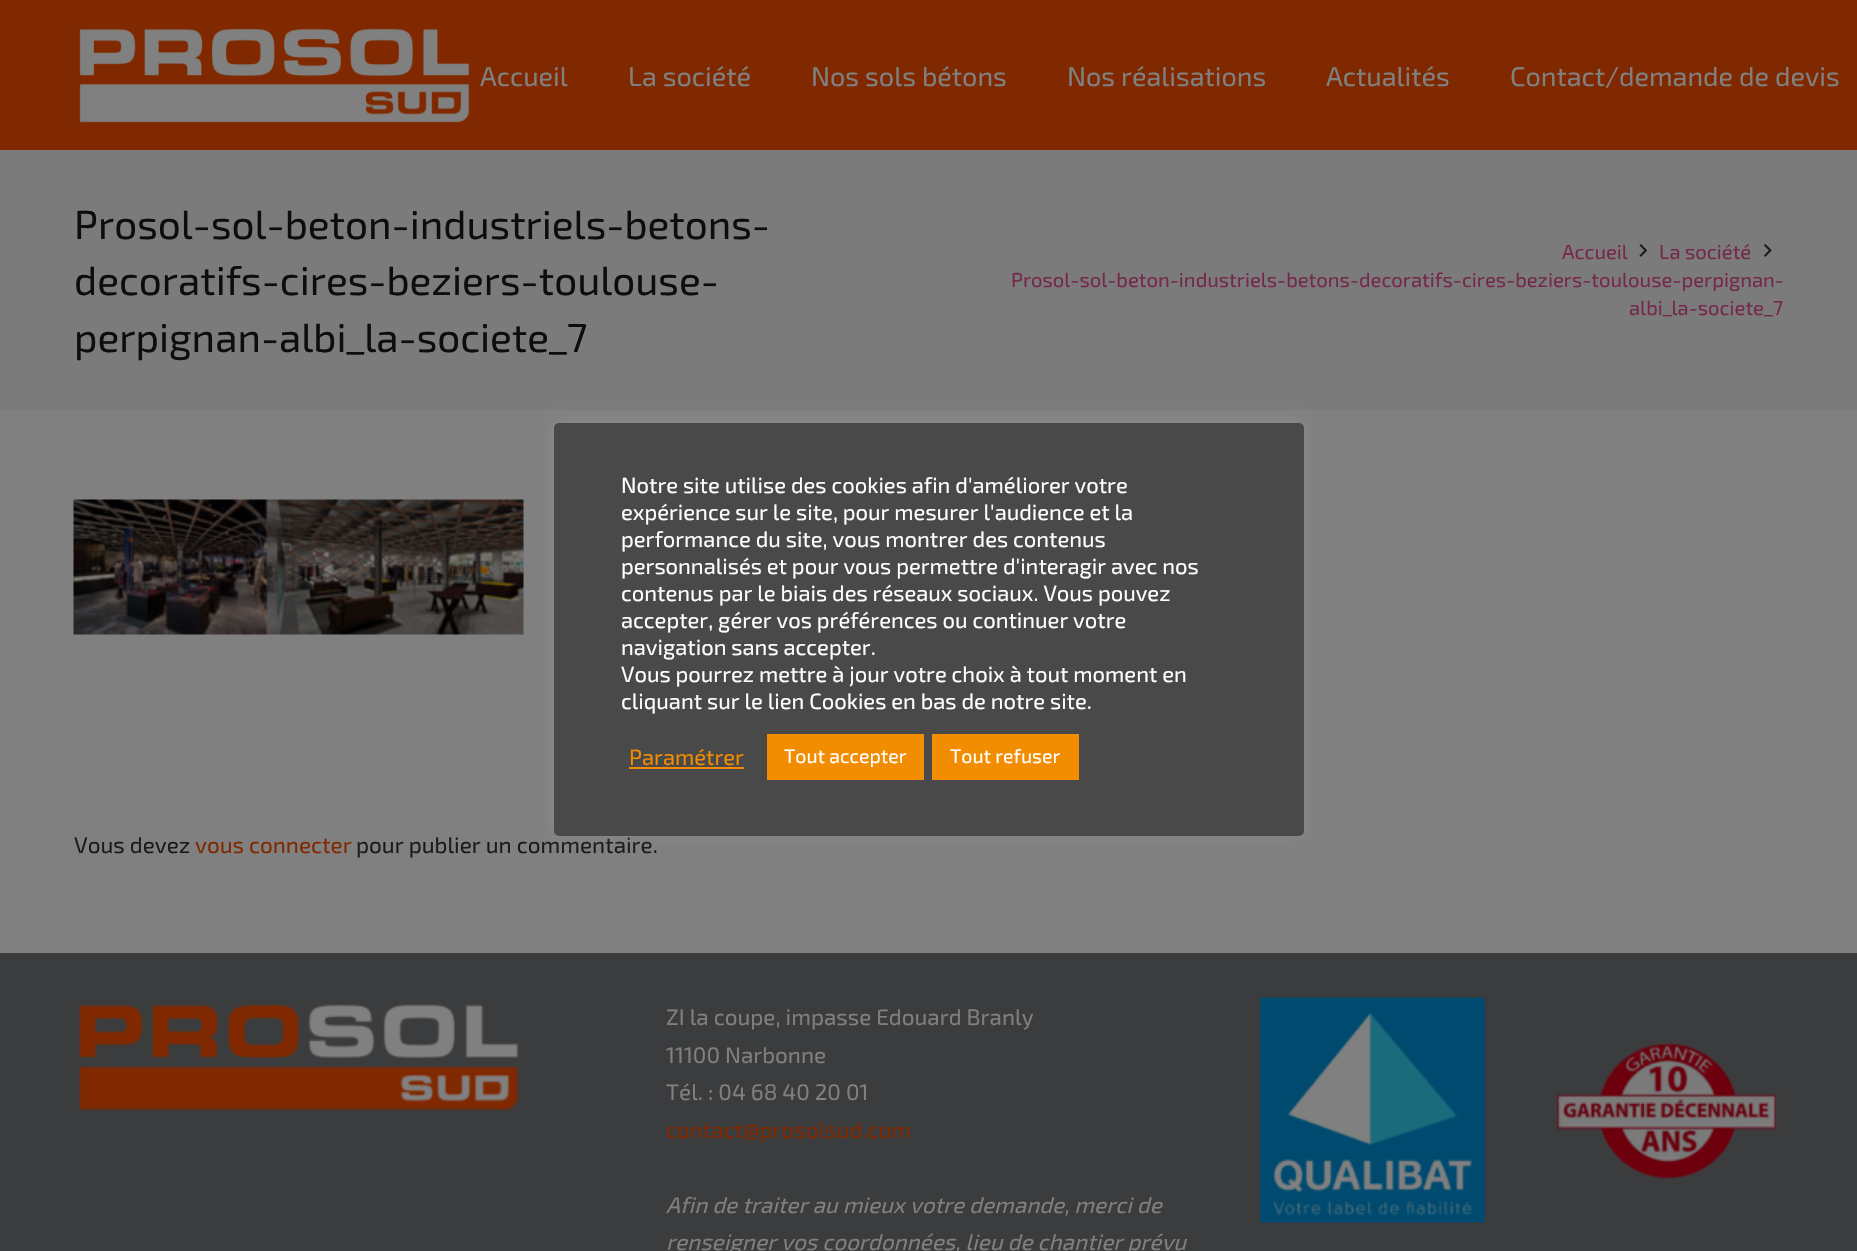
void draw(SkCanvas* canvas) {
    SkPaint paint;
    paint.setAntiAlias(true);
    auto face = [&](const char* family, int weight, float size, bool italic = false) {
        SkFontStyle style(weight, SkFontStyle::kNormal_Width,
            italic ? SkFontStyle::kItalic_Slant : SkFontStyle::kUpright_Slant);
        SkFont result(fontMgr->matchFamilyStyle(family, style), size);
        result.setSubpixel(true);
        return result;
    };
    auto write = [&](const char* s, float x, float y, const SkFont& font, SkColor color) {
        SkPaint ink(SkColor4f::FromColor(color));
        ink.setAntiAlias(true);
        canvas->drawString(s, x, y, font, ink);
    };
    auto block = [&](float x, float y, float w, float h, SkColor color) {
        SkPaint ink(SkColor4f::FromColor(color));
        ink.setAntiAlias(true);
        canvas->drawRect(SkRect::MakeXYWH(x, y, w, h), ink);
    };
    auto card = [&](float x, float y, float w, float h, float radius, SkColor color) {
        SkPaint ink(SkColor4f::FromColor(color));
        ink.setAntiAlias(true);
        canvas->drawRoundRect(SkRect::MakeXYWH(x, y, w, h), radius, radius, ink);
    };
    auto paste = [&](const char* path, float x, float y, float w, float h) {
        auto image = SkImages::DeferredFromEncodedData(SkData::MakeFromFileName(path));
        canvas->drawImageRect(image, SkRect::MakeXYWH(x, y, w, h), SkSamplingOptions());
    };
    canvas->clear(SkColorSetRGB(128, 128, 128));
    block(0, 0, 1857, 150, SkColorSetRGB(128, 41, 0));
    paste("pic1.png", 79, 28, 391, 95);
    auto kFont1 = face("Exo 2", 400, 27);
    write("Accueil", 480, 86, kFont1, SkColorSetRGB(128, 128, 128));
    write("La société", 628, 86, kFont1, SkColorSetRGB(128, 128, 128));
    write("Nos sols bétons", 811, 86, kFont1, SkColorSetRGB(128, 128, 128));
    write("Nos réalisations", 1067, 86, kFont1, SkColorSetRGB(128, 128, 128));
    write("Actualités", 1326, 86, kFont1, SkColorSetRGB(128, 128, 128));
    write("Contact/demande de devis", 1510, 86, kFont1, SkColorSetRGB(128, 128, 128));
    block(0, 150, 1857, 260, SkColorSetRGB(123, 123, 123));
    auto kFont2 = face("Exo 2", 400, 40.5f);
    write("Prosol-sol-beton-industriels-betons-", 74, 239, kFont2, SkColorSetRGB(13, 13, 13));
    write("decoratifs-cires-beziers-toulouse-", 74, 295, kFont2, SkColorSetRGB(13, 13, 13));
    write("perpignan-albi_la-societe_7", 74, 352, kFont2, SkColorSetRGB(13, 13, 13));
    auto kFont3 = face("Exo 2", 400, 20.25f);
    write("Accueil", 1562, 259, kFont3, SkColorSetRGB(117, 40, 75));
    paste("pic2.png", 1639, 244, 9, 13);
    write("La société", 1659, 259, kFont3, SkColorSetRGB(117, 40, 75));
    paste("pic3.png", 1764, 244, 8, 13);
    write("Prosol-sol-beton-industriels-betons-decoratifs-cires-beziers-toulouse-perpignan-", 1011, 287, kFont3, SkColorSetRGB(117, 40, 75));
    write("albi_la-societe_7", 1629, 315, kFont3, SkColorSetRGB(117, 40, 75));
    paste("pic4.png", 73, 499, 451, 136);
    auto kFont4 = face("Exo 2", 400, 22.5f);
    write("Vous devez", 74, 853, kFont4, SkColorSetRGB(26, 26, 26));
    write("vous connecter", 195, 853, kFont4, SkColorSetRGB(128, 41, 0));
    write("pour publier un commentaire.", 356, 853, kFont4, SkColorSetRGB(26, 26, 26));
    paint.setColor(SkColorSetARGB(77, 172, 171, 171));
    paint.setMaskFilter(SkMaskFilter::MakeBlur(kNormal_SkBlurStyle, 7.5f));
    canvas->drawRoundRect(SkRect::MakeXYWH(554, 422, 750, 412), 5, 5, paint);
    paint.setMaskFilter(nullptr);
    card(554, 423, 750, 413, 5, SkColorSetRGB(73, 73, 73));
    auto kFont5 = face("Exo 2", 400, 22);
    write("Notre site utilise des cookies afin d'améliorer votre", 621, 493, kFont5, SK_ColorWHITE);
    write("expérience sur le site, pour mesurer l'audience et la", 621, 520, kFont5, SK_ColorWHITE);
    write("performance du site, vous montrer des contenus", 621, 547, kFont5, SK_ColorWHITE);
    write("personnalisés et pour vous permettre d'interagir avec nos", 621, 574, kFont5, SK_ColorWHITE);
    write("contenus par le biais des réseaux sociaux. Vous pouvez", 621, 601, kFont5, SK_ColorWHITE);
    write("accepter, gérer vos préférences ou continuer votre", 621, 628, kFont5, SK_ColorWHITE);
    write("navigation sans accepter.", 621, 655, kFont5, SK_ColorWHITE);
    write("Vous pourrez mettre à jour votre choix à tout moment en", 621, 682, kFont5, SK_ColorWHITE);
    write("cliquant sur le lien Cookies en bas de notre site.", 621, 709, kFont5, SK_ColorWHITE);
    write("Paramétrer", 629, 765, kFont5, SkColorSetRGB(242, 140, 0));
    block(629, 767, 115, 2, SkColorSetRGB(242, 140, 0));
    block(767, 734, 157, 46, SkColorSetRGB(242, 140, 0));
    auto kFont6 = face("Exo 2", 400, 19.5f);
    write("Tout accepter", 784, 763, kFont6, SK_ColorWHITE);
    block(932, 734, 147, 46, SkColorSetRGB(242, 140, 0));
    write("Tout refuser", 950, 763, kFont6, SK_ColorWHITE);
    block(0, 953, 1857, 298, SkColorSetRGB(59, 60, 62));
    paste("pic5.png", 79, 1004, 440, 107);
    write("ZI la coupe, impasse Edouard Branly", 666, 1025, kFont4, SkColorSetRGB(128, 128, 128));
    write("11100 Narbonne", 666, 1063, kFont4, SkColorSetRGB(128, 128, 128));
    write("Tél. : 04 68 40 20 01", 666, 1100, kFont4, SkColorSetRGB(128, 128, 128));
    write("contact@prosolsud.com", 666, 1138, kFont4, SkColorSetRGB(128, 41, 0));
    auto kFont7 = face("Exo 2", 400, 22.5f, true);
    write("Afin de traiter au mieux votre demande, merci de", 666, 1213, kFont7, SkColorSetRGB(128, 128, 128));
    write("renseigner vos coordonnées, lieu de chantier prévu", 666, 1250, kFont7, SkColorSetRGB(128, 128, 128));
    paste("pic6.png", 1260, 997, 225, 226);
    paste("pic7.png", 1557, 1042, 221, 138);
}
